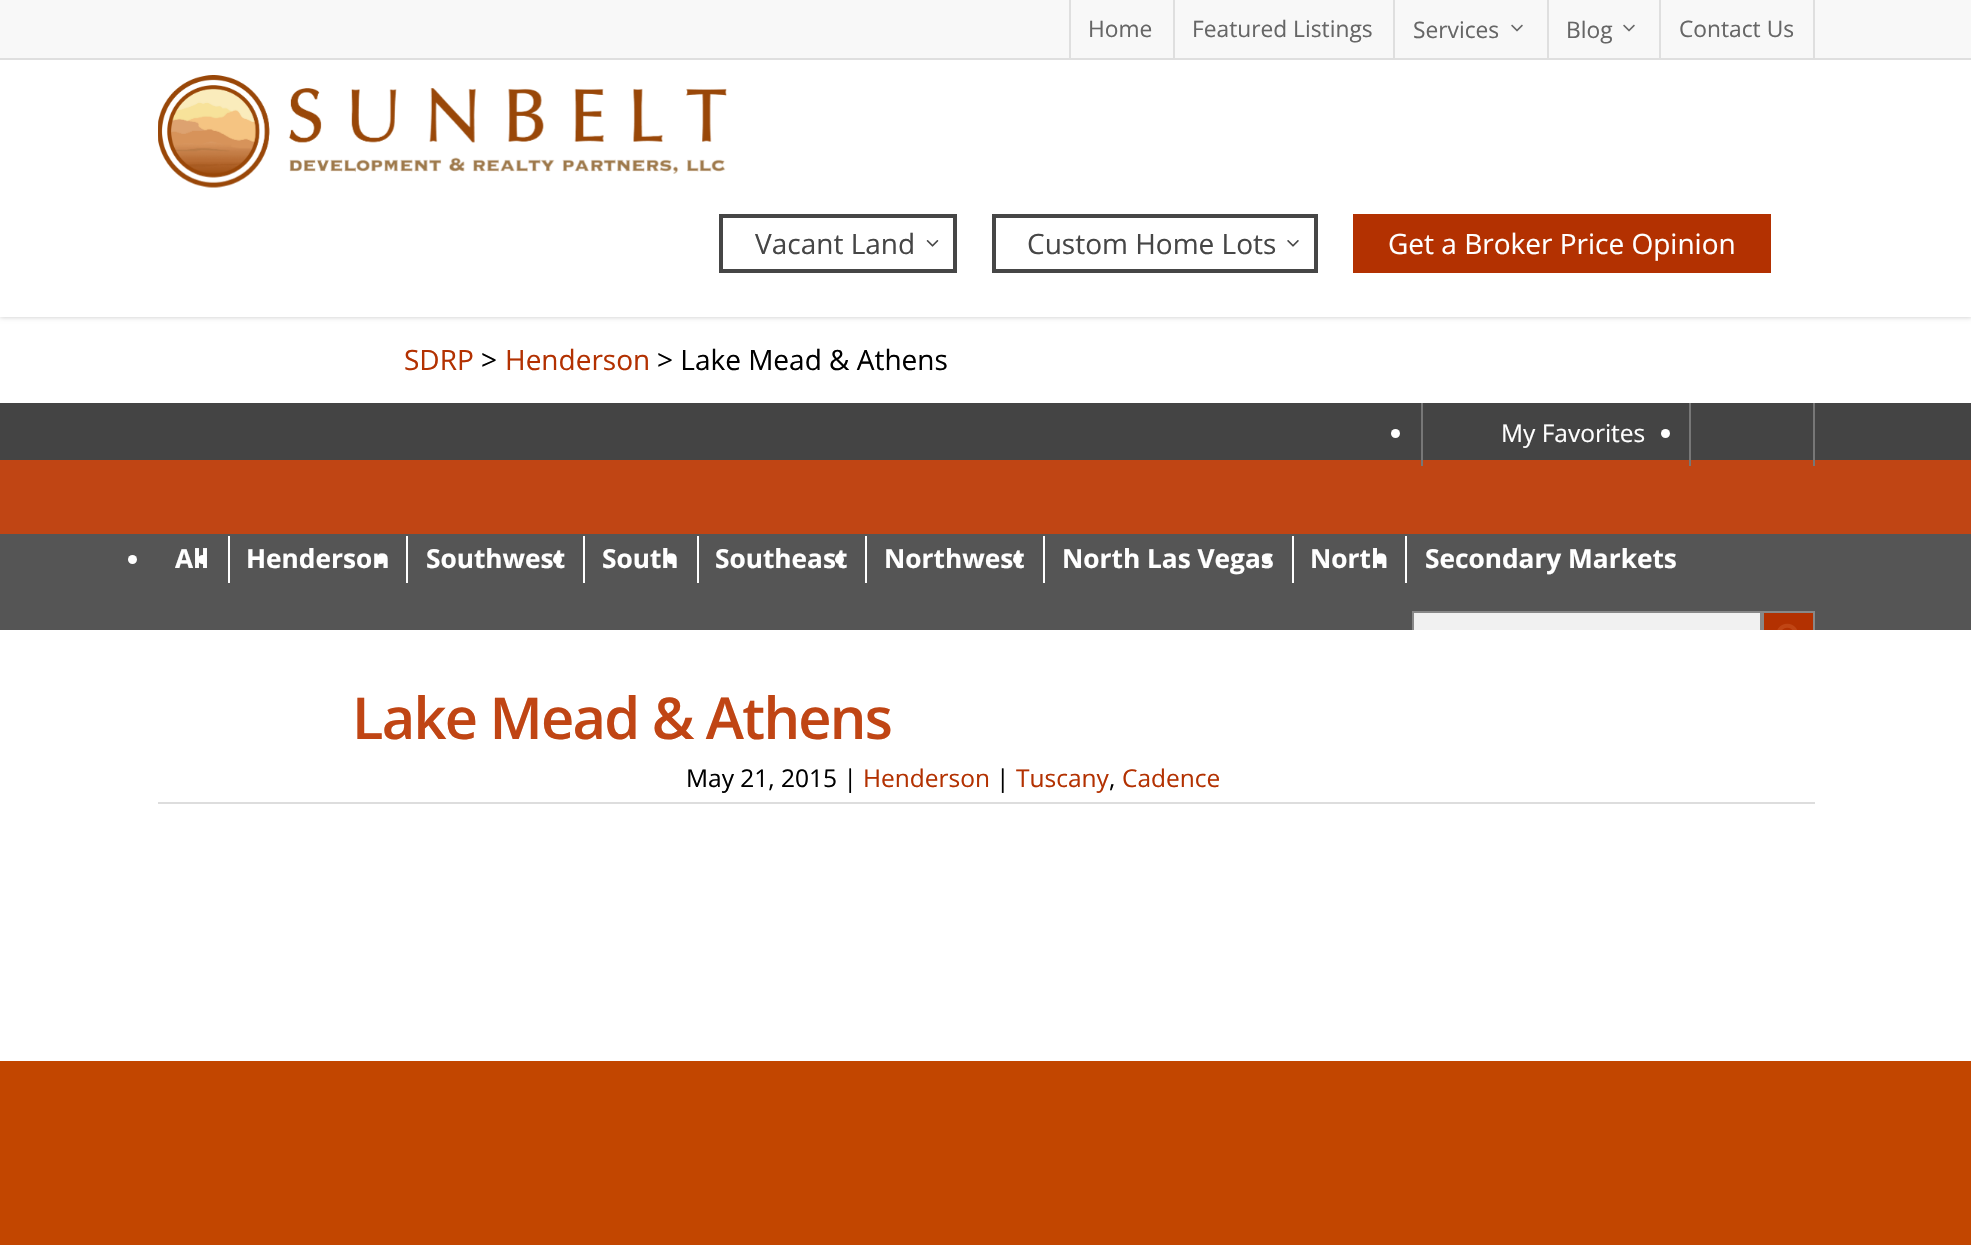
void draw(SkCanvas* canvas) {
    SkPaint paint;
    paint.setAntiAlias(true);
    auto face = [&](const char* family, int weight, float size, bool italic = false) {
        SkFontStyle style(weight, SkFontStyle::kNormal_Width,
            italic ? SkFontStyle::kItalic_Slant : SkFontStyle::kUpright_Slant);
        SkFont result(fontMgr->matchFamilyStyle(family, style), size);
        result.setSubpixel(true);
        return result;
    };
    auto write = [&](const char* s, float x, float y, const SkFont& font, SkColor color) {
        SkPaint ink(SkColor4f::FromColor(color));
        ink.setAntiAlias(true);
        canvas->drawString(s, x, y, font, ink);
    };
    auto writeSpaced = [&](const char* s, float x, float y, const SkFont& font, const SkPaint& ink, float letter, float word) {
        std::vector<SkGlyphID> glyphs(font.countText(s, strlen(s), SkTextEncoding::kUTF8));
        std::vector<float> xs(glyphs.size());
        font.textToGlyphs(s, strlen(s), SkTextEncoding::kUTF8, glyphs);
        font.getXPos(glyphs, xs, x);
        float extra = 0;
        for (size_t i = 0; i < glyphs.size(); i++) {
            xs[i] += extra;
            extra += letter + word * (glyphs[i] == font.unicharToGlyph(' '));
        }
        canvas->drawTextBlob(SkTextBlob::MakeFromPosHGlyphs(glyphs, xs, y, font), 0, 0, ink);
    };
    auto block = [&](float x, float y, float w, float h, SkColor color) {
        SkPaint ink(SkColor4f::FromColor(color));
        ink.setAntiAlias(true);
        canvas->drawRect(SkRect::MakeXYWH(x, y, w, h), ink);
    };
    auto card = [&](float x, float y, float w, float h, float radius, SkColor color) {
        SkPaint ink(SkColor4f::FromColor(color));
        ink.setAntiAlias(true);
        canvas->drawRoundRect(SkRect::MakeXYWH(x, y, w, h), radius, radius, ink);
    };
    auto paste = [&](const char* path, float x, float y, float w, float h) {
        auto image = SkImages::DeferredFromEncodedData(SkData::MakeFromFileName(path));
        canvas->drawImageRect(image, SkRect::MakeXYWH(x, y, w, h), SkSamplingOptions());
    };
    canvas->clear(SkColorSetRGB(85, 85, 85));
    block(0, 317, 1971, 86, SK_ColorWHITE);
    paint.setColor(SkColorSetARGB(56, 0, 0, 0));
    paint.setMaskFilter(SkMaskFilter::MakeBlur(kNormal_SkBlurStyle, 2.5f));
    canvas->drawRect(SkRect::MakeXYWH(0, 58, 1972, 259), paint);
    paint.setMaskFilter(nullptr);
    block(0, 0, 1971, 58, SkColorSetRGB(248, 248, 248));
    block(0, 58, 1971, 2, SkColorSetRGB(223, 223, 223));
    block(1069, 0, 2, 58, SkColorSetRGB(223, 223, 223));
    auto kFont1 = face("Open Sans", 400, 22.75f);
    write("Home", 1088, 37, kFont1, SkColorSetRGB(102, 102, 102));
    block(1173, 0, 2, 58, SkColorSetRGB(223, 223, 223));
    write("Featured Listings", 1192, 37, kFont1, SkColorSetRGB(102, 102, 102));
    block(1393, 0, 2, 58, SkColorSetRGB(223, 223, 223));
    write("Services", 1413, 38, kFont1, SkColorSetRGB(102, 102, 102));
    paste("pic1.png", 1511, 24, 12, 8);
    block(1547, 0, 2, 58, SkColorSetRGB(223, 223, 223));
    write("Blog", 1566, 38, kFont1, SkColorSetRGB(102, 102, 102));
    paste("pic1.png", 1623, 24, 12, 8);
    block(1813, 0, 2, 58, SkColorSetRGB(223, 223, 223));
    block(1659, 0, 2, 58, SkColorSetRGB(223, 223, 223));
    write("Contact Us", 1679, 37, kFont1, SkColorSetRGB(102, 102, 102));
    block(0, 60, 1971, 257, SK_ColorWHITE);
    paste("pic2.png", 158, 75, 569, 113);
    paint.setStyle(SkPaint::kStroke_Style);
    paint.setStrokeWidth(4);
    paint.setColor(SkColorSetRGB(70, 70, 70));
    canvas->drawRect(SkRect::MakeXYWH(721, 216, 234, 55), paint);
    auto kFont2 = face("Open Sans", 400, 28);
    write("Vacant Land", 755, 254, kFont2, SkColorSetRGB(70, 70, 70));
    paste("pic3.png", 926, 240, 13, 7);
    canvas->drawRect(SkRect::MakeXYWH(994, 216, 322, 55), paint);
    write("Custom Home Lots", 1027, 254, kFont2, SkColorSetRGB(70, 70, 70));
    paste("pic4.png", 1287, 240, 12, 7);
    block(1353, 214, 418, 59, SkColorSetRGB(179, 49, 1));
    write("Get a Broker Price Opinion", 1388, 254, kFont2, SK_ColorWHITE);
    write("SDRP", 404, 370, kFont2, SkColorSetRGB(179, 49, 1));
    write(">", 481, 370, kFont2, SK_ColorBLACK);
    write("Henderson", 505, 370, kFont2, SkColorSetRGB(179, 49, 1));
    write("> Lake Mead & Athens", 657, 370, kFont2, SK_ColorBLACK);
    block(0, 403, 1971, 57, SkColorSetRGB(68, 68, 68));
    block(0, 460, 1971, 74, SkColorSetRGB(192, 69, 20));
    block(1689, 403, 2, 63, SkColorSetRGB(119, 119, 119));
    block(1421, 403, 2, 63, SkColorSetRGB(119, 119, 119));
    paint.setStyle(SkPaint::kFill_Style);
    paint.setColor(SK_ColorWHITE);
    canvas->drawCircle(1395.5f, 433.5f, 4.5f, paint);
    auto kFont3 = face("Open Sans", 400, 24.5f);
    write("My Favorites", 1501, 442, kFont3, SK_ColorWHITE);
    block(1813, 403, 2, 63, SkColorSetRGB(119, 119, 119));
    canvas->drawCircle(1665.5f, 433.5f, 4.5f, paint);
    canvas->drawCircle(132.5f, 559.5f, 4.5f, paint);
    auto kFont4 = face("Open Sans", 700, 26.25f);
    write("All", 175, 568, kFont4, SK_ColorWHITE);
    block(228, 536, 2, 47, SK_ColorWHITE);
    canvas->drawCircle(202.5f, 559.5f, 4.5f, paint);
    write("Henderson", 246, 568, kFont4, SK_ColorWHITE);
    block(406, 536, 2, 47, SK_ColorWHITE);
    canvas->drawCircle(380.5f, 559.5f, 4.5f, paint);
    write("Southwest", 426, 568, kFont4, SK_ColorWHITE);
    block(583, 536, 2, 47, SK_ColorWHITE);
    canvas->drawCircle(557.5f, 559.5f, 4.5f, paint);
    write("South", 602, 568, kFont4, SK_ColorWHITE);
    block(697, 536, 2, 47, SK_ColorWHITE);
    canvas->drawCircle(671.5f, 559.5f, 4.5f, paint);
    write("Southeast", 715, 568, kFont4, SK_ColorWHITE);
    block(865, 536, 2, 47, SK_ColorWHITE);
    canvas->drawCircle(839.5f, 559.5f, 4.5f, paint);
    write("Northwest", 884, 568, kFont4, SK_ColorWHITE);
    block(1043, 536, 2, 47, SK_ColorWHITE);
    canvas->drawCircle(1017.5f, 559.5f, 4.5f, paint);
    write("North Las Vegas", 1062, 568, kFont4, SK_ColorWHITE);
    block(1292, 536, 2, 47, SK_ColorWHITE);
    canvas->drawCircle(1266.5f, 559.5f, 4.5f, paint);
    write("North", 1310, 568, kFont4, SK_ColorWHITE);
    block(1405, 536, 2, 47, SK_ColorWHITE);
    card(1376, 555, 8, 9, 4, SK_ColorWHITE);
    write("Secondary Markets", 1425, 568, kFont4, SK_ColorWHITE);
    block(1414, 613, 346, 17, SkColorSetRGB(241, 241, 241));
    paint.setStyle(SkPaint::kStroke_Style);
    paint.setStrokeWidth(2);
    paint.setColor(SkColorSetRGB(136, 136, 136));
    canvas->drawRect(SkRect::MakeXYWH(1413, 612, 348, 50), paint);
    block(1764, 613, 49, 17, SkColorSetRGB(179, 49, 1));
    canvas->drawRect(SkRect::MakeXYWH(1763, 612, 51, 50), paint);
    paste("pic5.png", 1777, 623, 20, 7);
    block(0, 630, 1971, 431, SK_ColorWHITE);
    block(158, 802, 1657, 2, SkColorSetRGB(221, 221, 221));
    auto kFont5 = face("Open Sans", 600, 57.75f);
    paint.setStyle(SkPaint::kFill_Style);
    paint.setColor(SkColorSetRGB(192, 69, 20));
    writeSpaced("Lake Mead & Athens", 352, 739, kFont5, paint, -1.75f, 0);
    write("May 21, 2015 |", 686, 787, kFont3, SK_ColorBLACK);
    write("Henderson", 863, 787, kFont3, SkColorSetRGB(179, 49, 1));
    write("|", 996, 787, kFont3, SK_ColorBLACK);
    write("Tuscany", 1016, 787, kFont3, SkColorSetRGB(179, 49, 1));
    write(",", 1109, 787, kFont3, SK_ColorBLACK);
    write("Cadence", 1122, 787, kFont3, SkColorSetRGB(179, 49, 1));
    block(0, 1061, 1971, 184, SkColorSetRGB(194, 70, 0));
}
